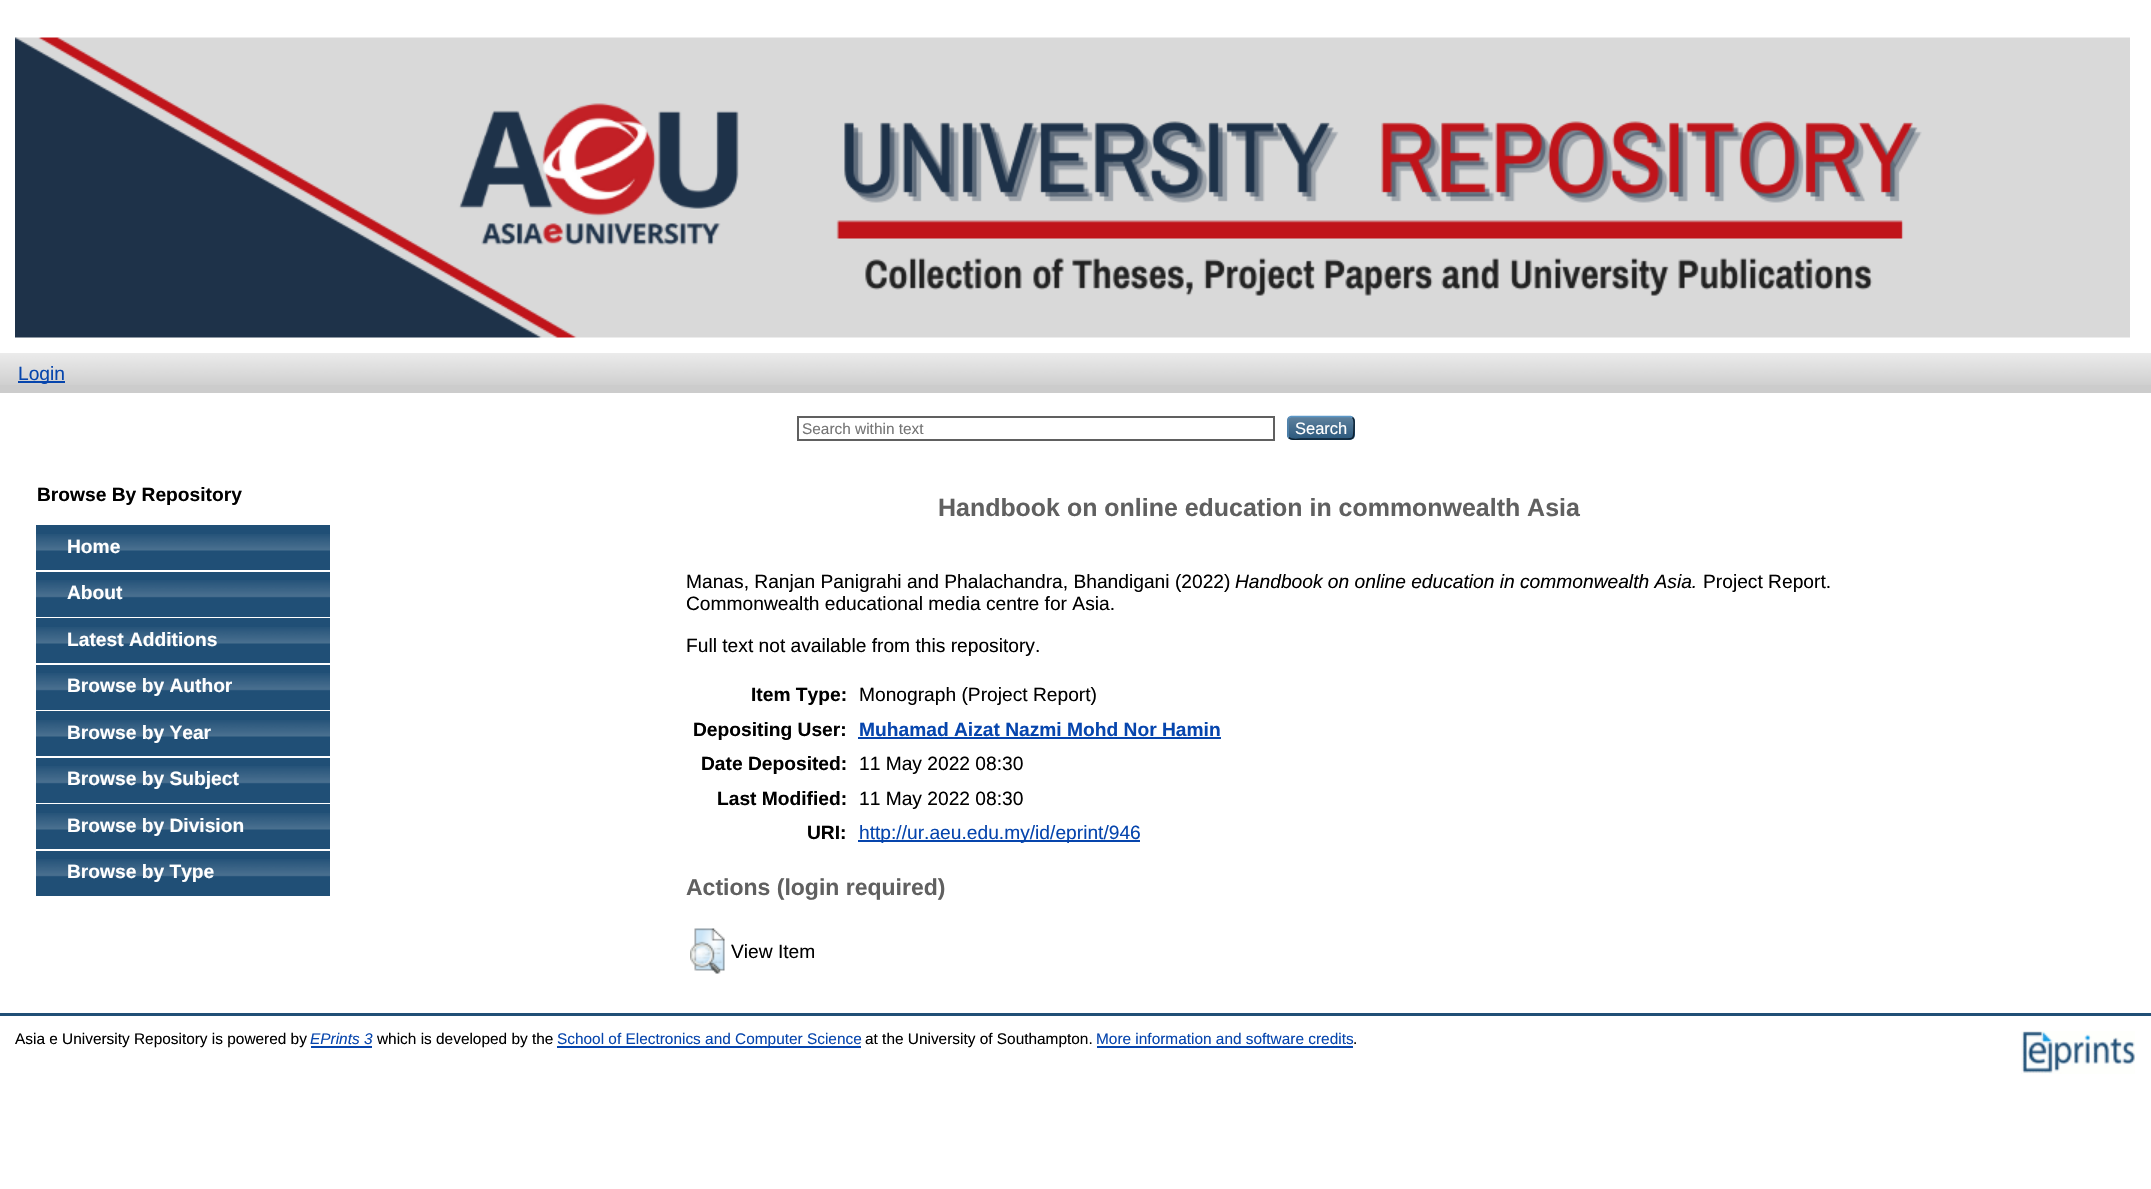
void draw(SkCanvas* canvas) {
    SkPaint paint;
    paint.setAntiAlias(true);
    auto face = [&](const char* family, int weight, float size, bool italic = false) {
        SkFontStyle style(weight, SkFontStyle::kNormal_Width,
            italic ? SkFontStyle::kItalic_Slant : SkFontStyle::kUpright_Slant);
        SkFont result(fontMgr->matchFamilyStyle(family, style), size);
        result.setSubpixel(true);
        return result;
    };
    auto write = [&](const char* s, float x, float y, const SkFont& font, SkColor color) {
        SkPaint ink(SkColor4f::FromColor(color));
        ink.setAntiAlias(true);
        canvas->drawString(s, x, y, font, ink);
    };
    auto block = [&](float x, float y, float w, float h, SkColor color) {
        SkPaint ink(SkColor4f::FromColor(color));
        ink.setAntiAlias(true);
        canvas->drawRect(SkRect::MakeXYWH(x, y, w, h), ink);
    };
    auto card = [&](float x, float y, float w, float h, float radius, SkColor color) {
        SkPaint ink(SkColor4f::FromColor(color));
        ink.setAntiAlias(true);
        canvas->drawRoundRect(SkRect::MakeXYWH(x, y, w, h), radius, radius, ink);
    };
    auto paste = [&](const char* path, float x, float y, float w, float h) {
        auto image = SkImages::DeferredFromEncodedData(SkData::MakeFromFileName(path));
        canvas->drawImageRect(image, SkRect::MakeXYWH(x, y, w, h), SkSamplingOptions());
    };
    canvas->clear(SK_ColorWHITE);
    paste("pic1.png", 15, 37, 2115, 301);
    block(0, 353, 2151, 40, SkColorSetRGB(204, 204, 204));
    paste("pic2.png", 0, 353, 2151, 32);
    block(18, 381, 47, 2, SkColorSetRGB(6, 69, 173));
    auto kFont1 = face("Liberation Sans", 400, 19.2f);
    write("Login", 18, 380, kFont1, SkColorSetRGB(6, 69, 173));
    paint.setStyle(SkPaint::kStroke_Style);
    paint.setStrokeWidth(2);
    paint.setColor(SkColorSetRGB(96, 96, 96));
    canvas->drawRect(SkRect::MakeXYWH(798, 417, 476, 23), paint);
    auto kFont2 = face("Liberation Sans", 400, 15.4f);
    write("Search within text", 802, 434, kFont2, SkColorSetRGB(117, 117, 117));
    card(1287, 416, 68, 24, 5, SkColorSetRGB(31, 79, 118));
    paste("pic3.png", 1287, 416, 68, 23);
    paint.setStrokeWidth(1.5f);
    paint.setColor(SkColorSetRGB(91, 151, 199));
    canvas->drawPath(SkPathBuilder().moveTo(1289, 417.5f).lineTo(1291, 416.5f).lineTo(1350.5f, 416.5f).lineTo(1352.5f, 417.5f).detach(), paint);
    paint.setColor(SkColorSetRGB(13, 33, 49));
    canvas->drawPath(SkPathBuilder().moveTo(1352.5f, 417.5f).cubicTo(1355, 419.5f, 1354, 424.5f, 1354, 427.5f).cubicTo(1354, 440.5f, 1354, 439, 1340, 439).lineTo(1301, 439).cubicTo(1300.5f, 439, 1291.5f, 440.5f, 1289, 437.5f).detach(), paint);
    paint.setColor(SkColorSetRGB(82, 135, 179));
    canvas->drawPath(SkPathBuilder().moveTo(1289, 437.5f).cubicTo(1288, 437, 1288, 436, 1288, 435).lineTo(1288, 420).cubicTo(1288, 419, 1288, 418, 1289, 417.5f).detach(), paint);
    auto kFont3 = face("Liberation Sans", 400, 16.5f);
    write("Search", 1295, 434, kFont3, SK_ColorWHITE);
    auto kFont4 = face("Liberation Sans", 700, 19.2f);
    write("Browse By Repository", 37, 501, kFont4, SK_ColorBLACK);
    block(36, 525, 294, 45, SkColorSetRGB(32, 79, 118));
    paste("pic4.png", 36, 534, 294, 17);
    write("Home", 67, 553, kFont4, SK_ColorWHITE);
    block(36, 572, 294, 45, SkColorSetRGB(32, 79, 118));
    paste("pic5.png", 36, 580, 294, 18);
    write("About", 67, 599, kFont4, SK_ColorWHITE);
    block(36, 618, 294, 45, SkColorSetRGB(32, 79, 118));
    paste("pic4.png", 36, 627, 294, 17);
    write("Latest Additions", 67, 646, kFont4, SK_ColorWHITE);
    block(36, 665, 294, 45, SkColorSetRGB(32, 79, 118));
    paste("pic5.png", 36, 673, 294, 18);
    write("Browse by Author", 67, 692, kFont4, SK_ColorWHITE);
    block(36, 711, 294, 45, SkColorSetRGB(32, 79, 118));
    paste("pic4.png", 36, 720, 294, 17);
    write("Browse by Year", 67, 739, kFont4, SK_ColorWHITE);
    block(36, 758, 294, 45, SkColorSetRGB(32, 79, 118));
    paste("pic5.png", 36, 766, 294, 18);
    write("Browse by Subject", 67, 785, kFont4, SK_ColorWHITE);
    block(36, 804, 294, 45, SkColorSetRGB(32, 79, 118));
    paste("pic4.png", 36, 813, 294, 17);
    write("Browse by Division", 67, 832, kFont4, SK_ColorWHITE);
    block(36, 851, 294, 45, SkColorSetRGB(32, 79, 118));
    paste("pic5.png", 36, 859, 294, 18);
    write("Browse by Type", 67, 878, kFont4, SK_ColorWHITE);
    auto kFont5 = face("Liberation Sans", 700, 24.95f);
    write("Handbook on online education in commonwealth Asia", 938, 516, kFont5, SkColorSetRGB(96, 96, 96));
    write("Manas, Ranjan Panigrahi and Phalachandra, Bhandigani (2022)", 686, 588, kFont1, SK_ColorBLACK);
    auto kFont6 = face("Liberation Sans", 400, 19.2f, true);
    write("Handbook on online education in commonwealth Asia.", 1235, 588, kFont6, SK_ColorBLACK);
    write("Project Report.", 1703, 588, kFont1, SK_ColorBLACK);
    write("Commonwealth educational media centre for Asia.", 686, 610, kFont1, SK_ColorBLACK);
    write("Full text not available from this repository.", 686, 652, kFont1, SK_ColorBLACK);
    write("Item Type:", 751, 701, kFont4, SK_ColorBLACK);
    write("Monograph (Project Report)", 859, 701, kFont1, SK_ColorBLACK);
    write("Depositing User:", 693, 736, kFont4, SK_ColorBLACK);
    write("Muhamad Aizat Nazmi Mohd Nor Hamin", 859, 736, kFont4, SkColorSetRGB(6, 69, 173));
    block(858, 737, 363, 2, SkColorSetRGB(6, 69, 173));
    write("Date Deposited:", 701, 770, kFont4, SK_ColorBLACK);
    write("11 May 2022 08:30", 859, 770, kFont1, SK_ColorBLACK);
    write("Last Modified:", 717, 805, kFont4, SK_ColorBLACK);
    write("11 May 2022 08:30", 859, 805, kFont1, SK_ColorBLACK);
    write("URI:", 807, 839, kFont4, SK_ColorBLACK);
    block(858, 840, 282, 2, SkColorSetRGB(6, 69, 173));
    write("http://ur.aeu.edu.my/id/eprint/946", 859, 839, kFont1, SkColorSetRGB(6, 69, 173));
    auto kFont7 = face("Liberation Sans", 700, 23);
    write("Actions (login required)", 686, 895, kFont7, SkColorSetRGB(96, 96, 96));
    paste("pic6.png", 690, 928, 35, 46);
    write("View Item", 731, 958, kFont1, SK_ColorBLACK);
    block(0, 1013, 2151, 3, SkColorSetRGB(32, 79, 118));
    write("Asia e University Repository is powered by", 15, 1044, kFont2, SK_ColorBLACK);
    auto kFont8 = face("Liberation Sans", 400, 15.4f, true);
    write("EPrints 3", 310, 1044, kFont8, SkColorSetRGB(6, 69, 173));
    block(311, 1046, 61, 2, SkColorSetRGB(6, 69, 173));
    write("which is developed by the", 377, 1044, kFont2, SK_ColorBLACK);
    block(557, 1046, 304, 2, SkColorSetRGB(6, 69, 173));
    write("School of Electronics and Computer Science", 557, 1044, kFont2, SkColorSetRGB(6, 69, 173));
    write("at the University of Southampton.", 865, 1044, kFont2, SK_ColorBLACK);
    write("More information and software credits", 1096, 1044, kFont2, SkColorSetRGB(6, 69, 173));
    block(1097, 1046, 256, 2, SkColorSetRGB(6, 69, 173));
    write(".", 1353, 1044, kFont2, SK_ColorBLACK);
    paste("pic7.png", 2021, 1031, 114, 43);
}
